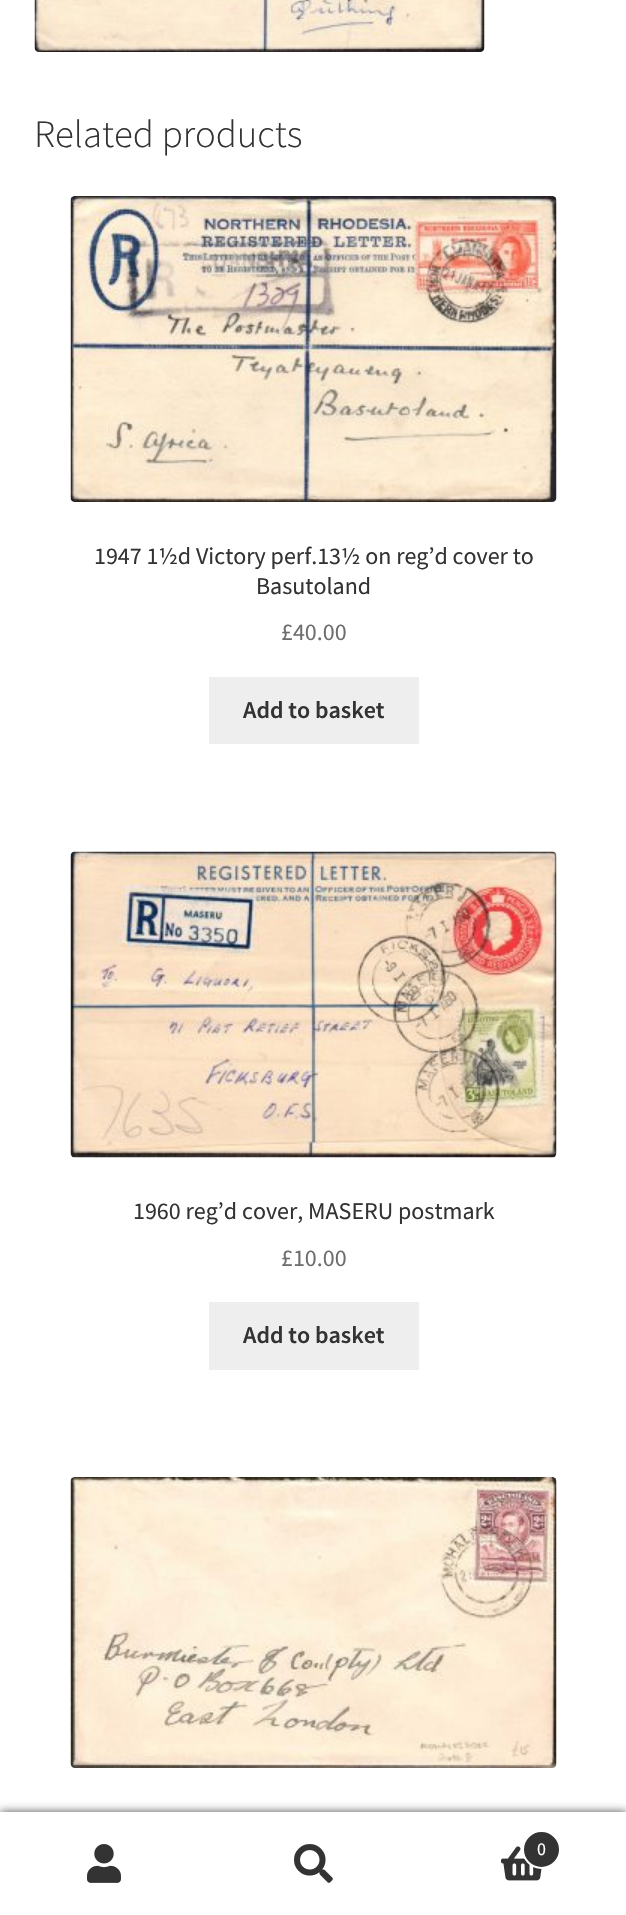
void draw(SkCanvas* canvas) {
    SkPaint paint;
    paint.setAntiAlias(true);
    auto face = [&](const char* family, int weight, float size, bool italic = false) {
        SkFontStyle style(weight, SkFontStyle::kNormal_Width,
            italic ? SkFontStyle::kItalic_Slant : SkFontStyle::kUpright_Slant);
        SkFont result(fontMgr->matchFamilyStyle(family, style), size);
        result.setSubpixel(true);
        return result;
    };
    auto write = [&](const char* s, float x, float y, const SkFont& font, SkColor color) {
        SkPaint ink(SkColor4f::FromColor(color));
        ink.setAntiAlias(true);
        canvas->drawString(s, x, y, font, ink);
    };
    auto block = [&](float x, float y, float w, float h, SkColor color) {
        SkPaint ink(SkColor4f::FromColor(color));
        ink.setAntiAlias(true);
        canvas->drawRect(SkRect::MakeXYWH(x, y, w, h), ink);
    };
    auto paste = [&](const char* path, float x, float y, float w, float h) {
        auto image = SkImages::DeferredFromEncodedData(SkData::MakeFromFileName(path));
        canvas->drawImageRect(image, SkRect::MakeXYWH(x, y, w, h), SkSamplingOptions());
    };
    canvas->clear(SK_ColorWHITE);
    paste("pic1.png", 34, 0, 451, 52);
    auto kFont1 = face("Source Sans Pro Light", 300, 38.75f);
    write("Related products", 34, 147, kFont1, SkColorSetRGB(51, 51, 51));
    paste("pic2.png", 70, 196, 487, 306);
    auto kFont2 = face("Source Sans Pro", 400, 24);
    write("1947 1½d Victory perf.13½ on reg’d cover to", 94, 564, kFont2, SkColorSetRGB(51, 51, 51));
    write("Basutoland", 256, 594, kFont2, SkColorSetRGB(51, 51, 51));
    write("£40.00", 281, 640, kFont2, SkColorSetRGB(109, 109, 109));
    block(209, 677, 210, 67, SkColorSetRGB(238, 238, 238));
    auto kFont3 = face("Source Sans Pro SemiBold", 600, 24);
    write("Add to basket", 243, 718, kFont3, SkColorSetRGB(51, 51, 51));
    paste("pic3.png", 70, 851, 487, 307);
    write("1960 reg’d cover, MASERU postmark", 133, 1219, kFont2, SkColorSetRGB(51, 51, 51));
    write("£10.00", 281, 1266, kFont2, SkColorSetRGB(109, 109, 109));
    block(209, 1302, 210, 68, SkColorSetRGB(238, 238, 238));
    write("Add to basket", 243, 1343, kFont3, SkColorSetRGB(51, 51, 51));
    paste("pic4.png", 70, 1477, 487, 291);
    paint.setColor(SkColorSetARGB(179, 0, 0, 0));
    paint.setMaskFilter(SkMaskFilter::MakeBlur(kNormal_SkBlurStyle, 4.5f));
    canvas->drawRect(SkRect::MakeXYWH(0, 1812, 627, 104), paint);
    paint.setMaskFilter(nullptr);
    block(0, 1812, 626, 2, SK_ColorWHITE);
    block(0, 1814, 626, 101, SK_ColorWHITE);
    paste("pic5.png", 87, 1844, 34, 39);
    paste("pic6.png", 294, 1844, 39, 39);
    paste("pic7.png", 501, 1846, 41, 35);
    paint.setColor(SkColorSetRGB(51, 51, 51));
    canvas->drawCircle(541.5f, 1849.5f, 18.5f, paint);
    paint.setStyle(SkPaint::kStroke_Style);
    paint.setStrokeWidth(2);
    paint.setColor(SK_ColorWHITE);
    canvas->drawCircle(541.5f, 1849.5f, 18.5f, paint);
    auto kFont4 = face("Source Sans Pro", 400, 18);
    write("0", 537, 1855, kFont4, SK_ColorWHITE);
}
